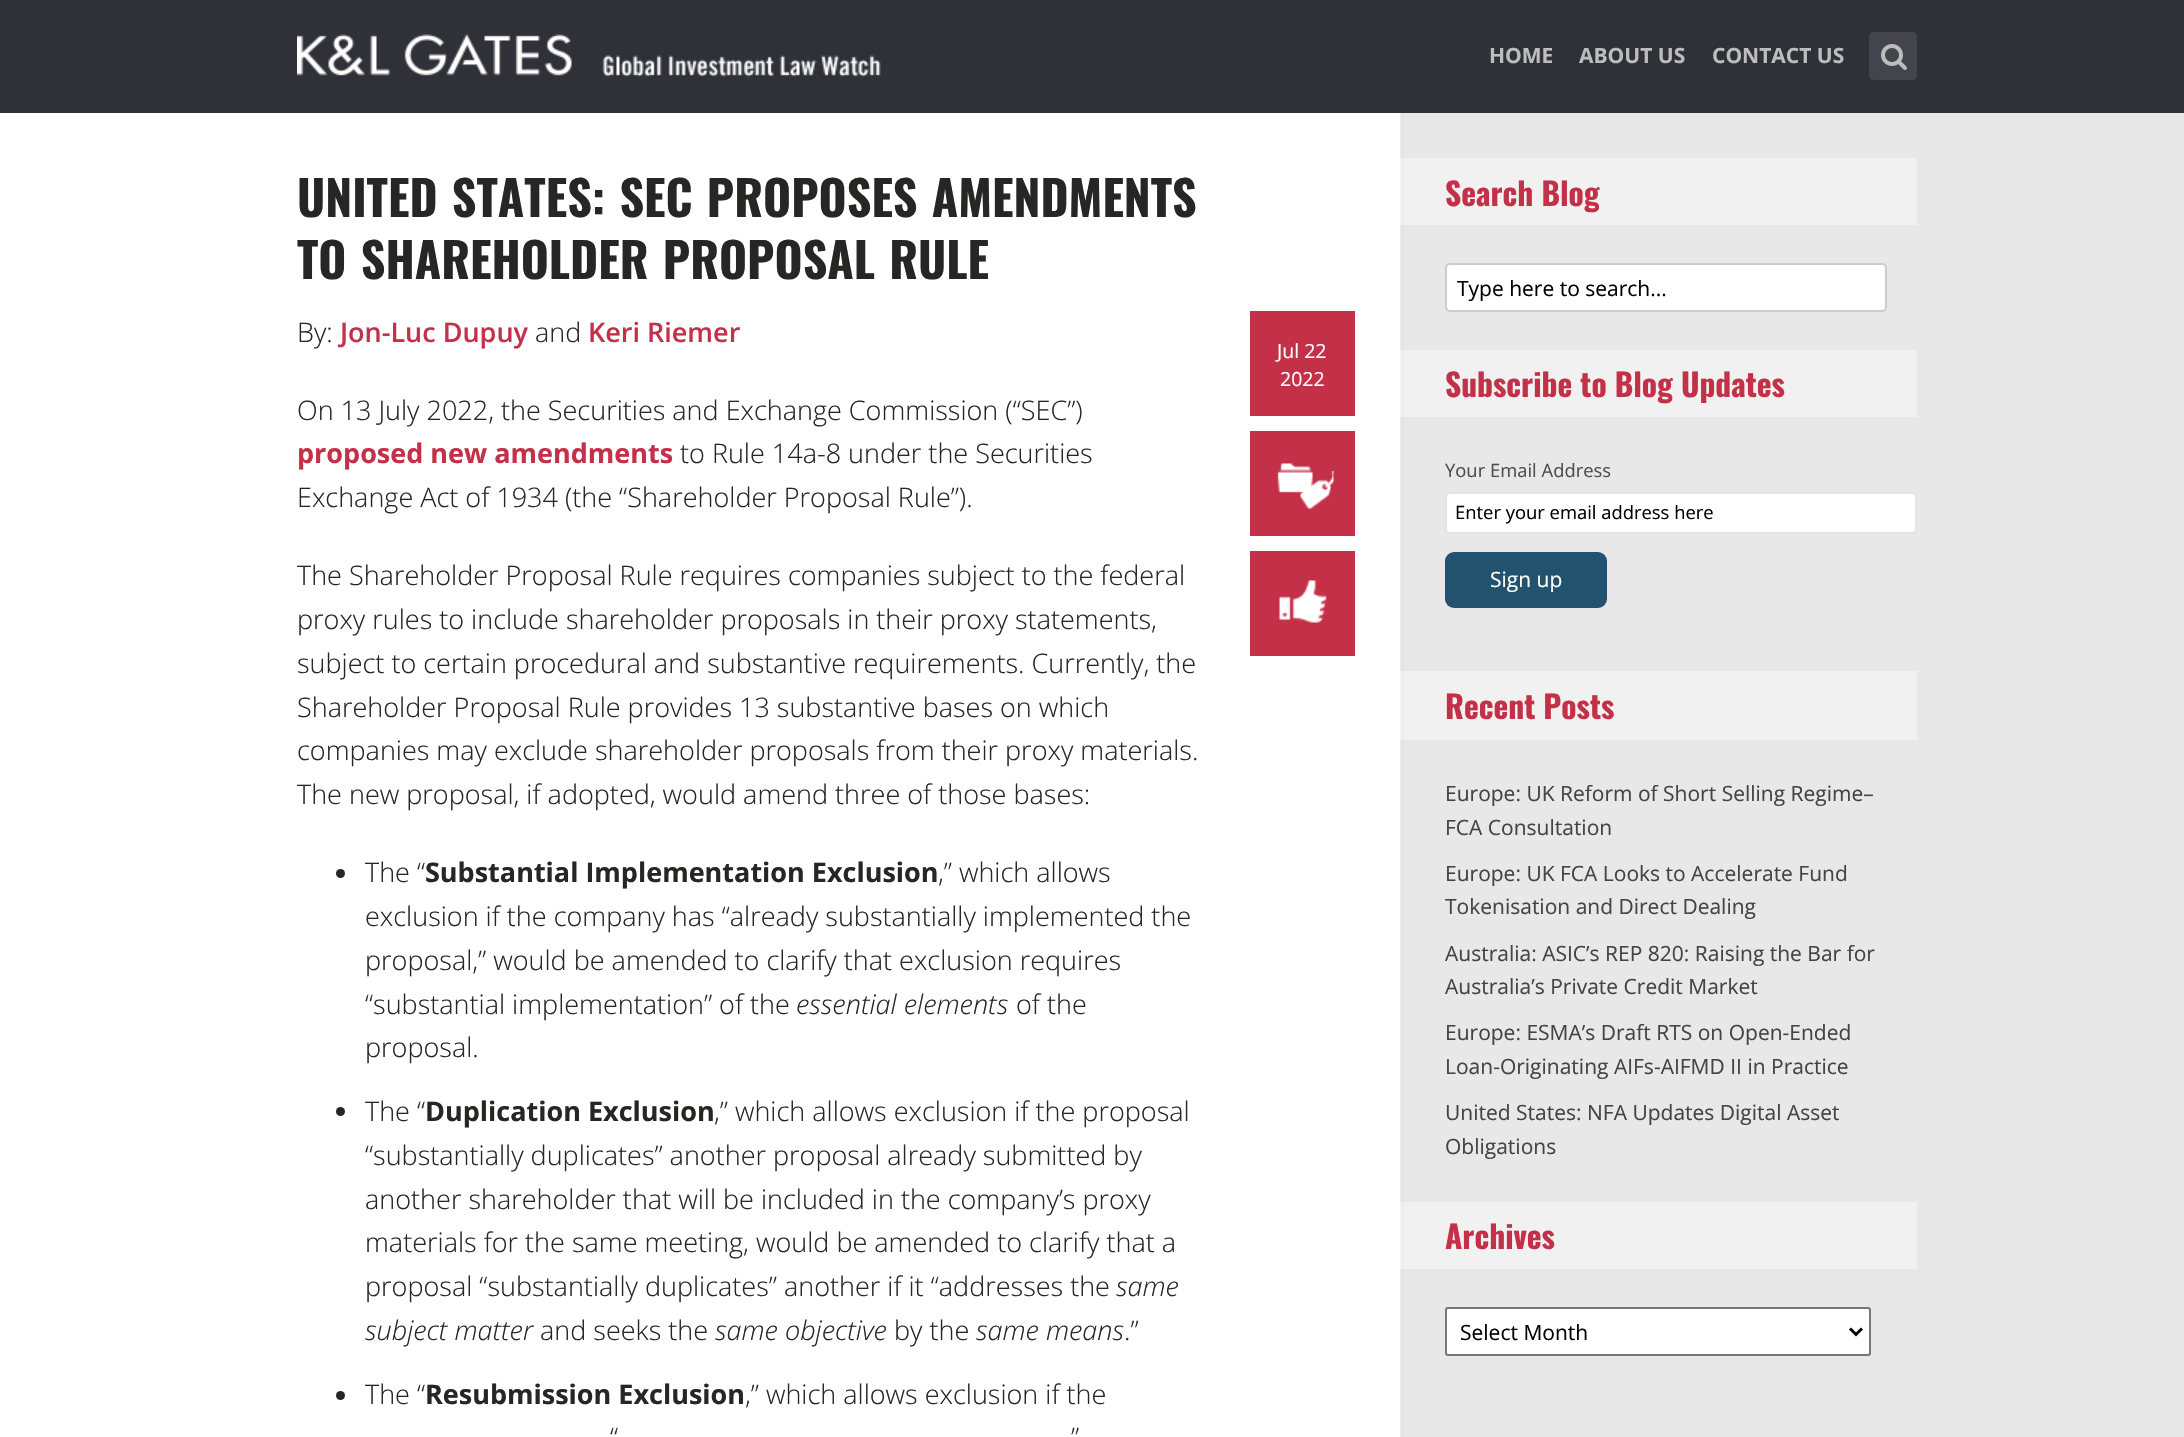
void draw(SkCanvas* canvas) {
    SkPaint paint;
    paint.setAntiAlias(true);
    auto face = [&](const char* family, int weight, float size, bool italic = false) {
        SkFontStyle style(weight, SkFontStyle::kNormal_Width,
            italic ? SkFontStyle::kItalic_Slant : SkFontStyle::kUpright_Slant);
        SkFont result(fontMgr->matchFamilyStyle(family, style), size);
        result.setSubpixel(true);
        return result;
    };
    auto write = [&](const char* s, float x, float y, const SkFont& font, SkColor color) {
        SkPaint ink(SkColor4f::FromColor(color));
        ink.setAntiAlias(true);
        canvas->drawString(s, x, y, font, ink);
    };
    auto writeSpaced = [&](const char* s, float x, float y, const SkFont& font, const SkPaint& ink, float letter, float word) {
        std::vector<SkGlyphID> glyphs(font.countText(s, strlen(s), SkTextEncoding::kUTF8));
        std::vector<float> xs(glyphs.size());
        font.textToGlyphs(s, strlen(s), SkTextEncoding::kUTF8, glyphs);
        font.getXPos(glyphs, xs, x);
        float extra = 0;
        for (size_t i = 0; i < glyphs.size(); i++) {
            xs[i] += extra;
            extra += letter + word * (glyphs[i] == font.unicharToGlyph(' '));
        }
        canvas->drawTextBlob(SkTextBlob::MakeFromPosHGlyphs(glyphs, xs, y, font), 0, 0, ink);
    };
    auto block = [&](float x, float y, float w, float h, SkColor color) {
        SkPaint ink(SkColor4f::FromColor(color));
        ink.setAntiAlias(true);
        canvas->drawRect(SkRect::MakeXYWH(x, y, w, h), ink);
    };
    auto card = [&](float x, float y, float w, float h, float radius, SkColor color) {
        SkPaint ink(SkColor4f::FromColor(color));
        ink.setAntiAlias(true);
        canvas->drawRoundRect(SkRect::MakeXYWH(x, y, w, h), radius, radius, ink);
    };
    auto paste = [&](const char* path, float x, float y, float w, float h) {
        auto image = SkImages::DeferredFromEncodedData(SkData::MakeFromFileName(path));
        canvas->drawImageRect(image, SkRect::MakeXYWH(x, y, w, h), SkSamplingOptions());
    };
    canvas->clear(SK_ColorWHITE);
    block(0, 0, 2184, 113, SkColorSetRGB(47, 48, 56));
    paste("pic1.png", 297, 34, 584, 43);
    auto kFont1 = face("Open Sans", 700, 21);
    write("HOME", 1489, 63, kFont1, SkColorSetRGB(189, 189, 189));
    write("ABOUT US", 1579, 63, kFont1, SkColorSetRGB(189, 189, 189));
    write("CONTACT US", 1712, 63, kFont1, SkColorSetRGB(189, 189, 189));
    card(1869, 32, 48, 48, 5, SkColorSetRGB(68, 69, 76));
    paste("pic2.png", 1881, 44, 26, 26);
    block(1400, 113, 784, 1324, SkColorSetRGB(232, 232, 232));
    block(1402, 114, 2, 1323, SkColorSetRGB(227, 227, 227));
    auto kFont2 = face("Oswald", 700, 48);
    paint.setColor(SkColorSetRGB(40, 37, 37));
    writeSpaced("UNITED STATES: SEC PROPOSES AMENDMENTS", 297, 217, kFont2, paint, 0, 2);
    writeSpaced("TO SHAREHOLDER PROPOSAL RULE", 297, 279, kFont2, paint, 0, 2);
    auto kFont3 = face("Open Sans", 300, 27);
    write("By:", 297, 342, kFont3, SkColorSetRGB(40, 37, 37));
    auto kFont4 = face("Open Sans", 600, 27);
    write("Jon-Luc Dupuy", 340, 342, kFont4, SkColorSetRGB(196, 48, 72));
    write("and", 535, 342, kFont3, SkColorSetRGB(40, 37, 37));
    write("Keri Riemer", 588, 342, kFont4, SkColorSetRGB(196, 48, 72));
    write("On 13 July 2022, the Securities and Exchange Commission (“SEC”)", 297, 420, kFont3, SkColorSetRGB(40, 37, 37));
    auto kFont5 = face("Open Sans", 700, 27);
    write("proposed new amendments", 297, 463, kFont5, SkColorSetRGB(196, 48, 72));
    write("to Rule 14a-8 under the Securities", 680, 463, kFont3, SkColorSetRGB(40, 37, 37));
    write("Exchange Act of 1934 (the “Shareholder Proposal Rule”).", 297, 507, kFont3, SkColorSetRGB(40, 37, 37));
    write("The Shareholder Proposal Rule requires companies subject to the federal", 297, 585, kFont3, SkColorSetRGB(40, 37, 37));
    write("proxy rules to include shareholder proposals in their proxy statements,", 297, 629, kFont3, SkColorSetRGB(40, 37, 37));
    write("subject to certain procedural and substantive requirements. Currently, the", 297, 673, kFont3, SkColorSetRGB(40, 37, 37));
    write("Shareholder Proposal Rule provides 13 substantive bases on which", 297, 717, kFont3, SkColorSetRGB(40, 37, 37));
    write("companies may exclude shareholder proposals from their proxy materials.", 297, 760, kFont3, SkColorSetRGB(40, 37, 37));
    write("The new proposal, if adopted, would amend three of those bases:", 297, 804, kFont3, SkColorSetRGB(40, 37, 37));
    canvas->drawCircle(340.5f, 873.5f, 4.5f, paint);
    write("The “", 365, 882, kFont3, SkColorSetRGB(40, 37, 37));
    write("Substantial Implementation Exclusion", 425, 882, kFont5, SkColorSetRGB(40, 37, 37));
    write(",” which allows", 938, 882, kFont3, SkColorSetRGB(40, 37, 37));
    write("exclusion if the company has “already substantially implemented the", 365, 926, kFont3, SkColorSetRGB(40, 37, 37));
    write("proposal,” would be amended to clarify that exclusion requires", 365, 970, kFont3, SkColorSetRGB(40, 37, 37));
    write("“substantial implementation” of the", 365, 1014, kFont3, SkColorSetRGB(40, 37, 37));
    auto kFont6 = face("Open Sans", 300, 27, true);
    write("essential elements", 796, 1014, kFont6, SkColorSetRGB(40, 37, 37));
    write("of the", 1016, 1014, kFont3, SkColorSetRGB(40, 37, 37));
    write("proposal.", 365, 1057, kFont3, SkColorSetRGB(40, 37, 37));
    canvas->drawCircle(340.5f, 1111.5f, 4.5f, paint);
    write("The “", 365, 1121, kFont3, SkColorSetRGB(40, 37, 37));
    write("Duplication Exclusion", 425, 1121, kFont5, SkColorSetRGB(40, 37, 37));
    write(",” which allows exclusion if the proposal", 714, 1121, kFont3, SkColorSetRGB(40, 37, 37));
    write("“substantially duplicates” another proposal already submitted by", 365, 1165, kFont3, SkColorSetRGB(40, 37, 37));
    write("another shareholder that will be included in the company’s proxy", 365, 1209, kFont3, SkColorSetRGB(40, 37, 37));
    write("materials for the same meeting, would be amended to clarify that a", 365, 1252, kFont3, SkColorSetRGB(40, 37, 37));
    write("proposal “substantially duplicates” another if it “addresses the", 365, 1296, kFont3, SkColorSetRGB(40, 37, 37));
    write("same", 1116, 1296, kFont6, SkColorSetRGB(40, 37, 37));
    write("subject matter", 365, 1340, kFont6, SkColorSetRGB(40, 37, 37));
    write("and seeks the", 540, 1340, kFont3, SkColorSetRGB(40, 37, 37));
    write("same objective", 715, 1340, kFont6, SkColorSetRGB(40, 37, 37));
    write("by the", 894, 1340, kFont3, SkColorSetRGB(40, 37, 37));
    write("same means", 976, 1340, kFont6, SkColorSetRGB(40, 37, 37));
    write(".”", 1124, 1340, kFont3, SkColorSetRGB(40, 37, 37));
    canvas->drawCircle(340.5f, 1395.5f, 4.5f, paint);
    write("The “", 365, 1404, kFont3, SkColorSetRGB(40, 37, 37));
    write("Resubmission Exclusion", 425, 1404, kFont5, SkColorSetRGB(40, 37, 37));
    write(",” which allows exclusion if the", 745, 1404, kFont3, SkColorSetRGB(40, 37, 37));
    write("“", 610, 1447, kFont3, SkColorSetRGB(40, 37, 37));
    write("”", 1071, 1447, kFont3, SkColorSetRGB(40, 37, 37));
    block(1250, 311, 105, 105, SkColorSetRGB(196, 48, 72));
    auto kFont7 = face("Open Sans", 400, 19.5f);
    write("Jul 22", 1277, 358, kFont7, SK_ColorWHITE);
    write("2022", 1280, 386, kFont7, SK_ColorWHITE);
    block(1250, 431, 105, 105, SkColorSetRGB(196, 48, 72));
    paste("pic3.png", 1277, 463, 57, 46);
    block(1250, 551, 105, 105, SkColorSetRGB(196, 48, 72));
    paste("pic4.png", 1279, 580, 48, 43);
    block(1400, 158, 517, 67, SkColorSetRGB(241, 241, 241));
    block(1402, 158, 2, 67, SkColorSetRGB(236, 236, 236));
    auto kFont8 = face("Oswald", 700, 31.5f);
    write("Search Blog", 1445, 206, kFont8, SkColorSetRGB(196, 48, 72));
    paint.setColor(SK_ColorWHITE);
    canvas->drawRoundRect(SkRect::MakeXYWH(1446, 264, 440, 47), 4, 4, paint);
    paint.setStyle(SkPaint::kStroke_Style);
    paint.setStrokeWidth(2);
    paint.setColor(SkColorSetRGB(204, 204, 204));
    canvas->drawRoundRect(SkRect::MakeXYWH(1446, 264, 440, 47), 4, 4, paint);
    auto kFont9 = face("Open Sans", 400, 21);
    write("Type here to search...", 1457, 296, kFont9, SkColorSetRGB(1, 1, 1));
    block(1400, 350, 517, 67, SkColorSetRGB(241, 241, 241));
    block(1402, 350, 2, 67, SkColorSetRGB(236, 236, 236));
    write("Subscribe to Blog Updates", 1445, 397, kFont8, SkColorSetRGB(196, 48, 72));
    auto kFont10 = face("Open Sans", 400, 18.4f);
    write("Your Email Address", 1445, 477, kFont10, SkColorSetRGB(77, 77, 77));
    paint.setStyle(SkPaint::kFill_Style);
    paint.setColor(SK_ColorWHITE);
    canvas->drawRoundRect(SkRect::MakeXYWH(1446, 493, 470, 40), 4, 4, paint);
    paint.setStyle(SkPaint::kStroke_Style);
    paint.setColor(SkColorSetRGB(228, 228, 228));
    canvas->drawRoundRect(SkRect::MakeXYWH(1446, 493, 470, 40), 4, 4, paint);
    write("Enter your email address here", 1455, 519, kFont10, SkColorSetRGB(1, 1, 1));
    card(1445, 552, 162, 56, 9, SkColorSetRGB(35, 82, 110));
    write("Sign up", 1490, 587, kFont9, SK_ColorWHITE);
    block(1400, 671, 517, 69, SkColorSetRGB(241, 241, 241));
    block(1402, 671, 2, 69, SkColorSetRGB(236, 236, 236));
    write("Recent Posts", 1445, 719, kFont8, SkColorSetRGB(196, 48, 72));
    write("Europe: UK Reform of Short Selling Regime–", 1445, 801, kFont9, SkColorSetRGB(69, 67, 67));
    write("FCA Consultation", 1445, 835, kFont9, SkColorSetRGB(69, 67, 67));
    write("Europe: UK FCA Looks to Accelerate Fund", 1445, 881, kFont9, SkColorSetRGB(69, 67, 67));
    write("Tokenisation and Direct Dealing", 1445, 914, kFont9, SkColorSetRGB(69, 67, 67));
    write("Australia: ASIC’s REP 820: Raising the Bar for", 1445, 961, kFont9, SkColorSetRGB(69, 67, 67));
    write("Australia’s Private Credit Market", 1445, 994, kFont9, SkColorSetRGB(69, 67, 67));
    write("Europe: ESMA’s Draft RTS on Open-Ended", 1445, 1040, kFont9, SkColorSetRGB(69, 67, 67));
    write("Loan-Originating AIFs-AIFMD II in Practice", 1445, 1074, kFont9, SkColorSetRGB(69, 67, 67));
    write("United States: NFA Updates Digital Asset", 1445, 1120, kFont9, SkColorSetRGB(69, 67, 67));
    write("Obligations", 1445, 1154, kFont9, SkColorSetRGB(69, 67, 67));
    block(1400, 1202, 517, 67, SkColorSetRGB(241, 241, 241));
    block(1402, 1202, 2, 67, SkColorSetRGB(236, 236, 236));
    write("Archives", 1445, 1249, kFont8, SkColorSetRGB(196, 48, 72));
    paint.setStyle(SkPaint::kFill_Style);
    paint.setColor(SK_ColorWHITE);
    canvas->drawRoundRect(SkRect::MakeXYWH(1446, 1308, 424, 47), 2, 2, paint);
    paint.setStyle(SkPaint::kStroke_Style);
    paint.setColor(SkColorSetRGB(118, 118, 118));
    canvas->drawRoundRect(SkRect::MakeXYWH(1446, 1308, 424, 47), 2, 2, paint);
    paint.setStrokeWidth(3);
    paint.setColor(SK_ColorBLACK);
    canvas->drawPath(SkPathBuilder().moveTo(1850, 1328.5f).lineTo(1856, 1334.5f).lineTo(1862, 1328.5f).detach(), paint);
    write("Select Month", 1460, 1340, kFont9, SkColorSetRGB(1, 1, 1));
}
